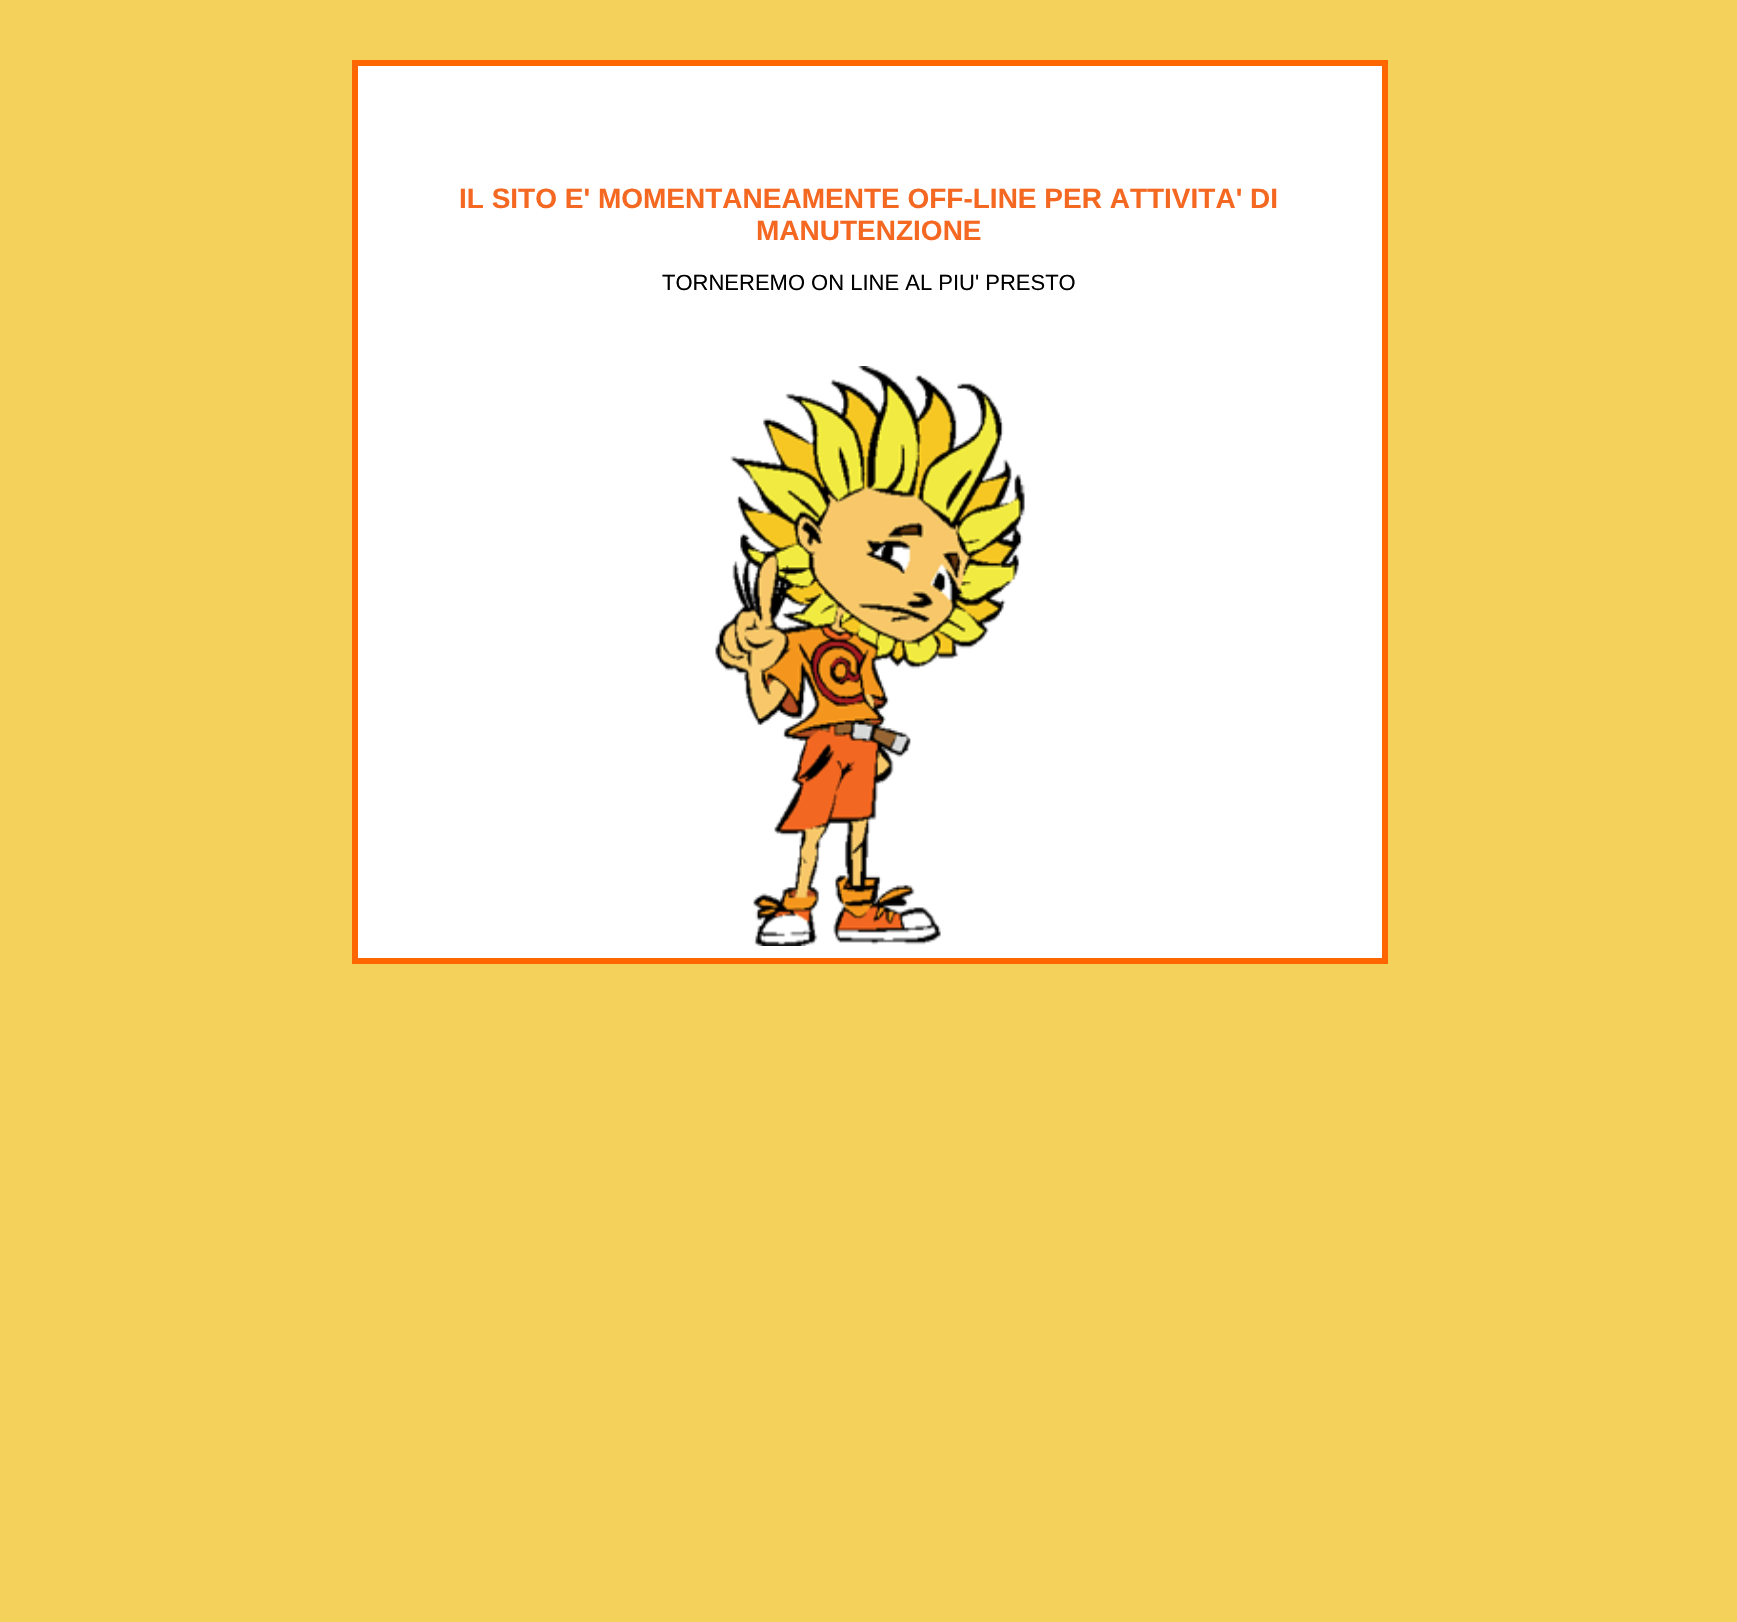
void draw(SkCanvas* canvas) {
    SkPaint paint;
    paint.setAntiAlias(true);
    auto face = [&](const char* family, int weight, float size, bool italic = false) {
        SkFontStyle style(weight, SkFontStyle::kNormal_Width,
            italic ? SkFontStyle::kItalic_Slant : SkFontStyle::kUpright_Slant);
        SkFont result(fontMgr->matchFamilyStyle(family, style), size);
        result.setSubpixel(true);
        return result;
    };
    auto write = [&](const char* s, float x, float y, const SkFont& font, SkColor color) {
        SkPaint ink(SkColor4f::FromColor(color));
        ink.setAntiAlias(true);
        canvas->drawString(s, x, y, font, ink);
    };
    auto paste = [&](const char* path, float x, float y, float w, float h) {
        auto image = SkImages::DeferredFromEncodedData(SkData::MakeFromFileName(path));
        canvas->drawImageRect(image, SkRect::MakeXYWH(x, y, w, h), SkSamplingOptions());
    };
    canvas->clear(SkColorSetRGB(244, 209, 90));
    paint.setColor(SK_ColorWHITE);
    canvas->drawRect(SkRect::MakeXYWH(355, 63, 1030, 898), paint);
    paint.setStyle(SkPaint::kStroke_Style);
    paint.setStrokeWidth(6);
    paint.setColor(SkColorSetRGB(255, 102, 0));
    canvas->drawRect(SkRect::MakeXYWH(355, 63, 1030, 898), paint);
    auto kFont1 = face("Liberation Sans", 700, 28);
    write("IL SITO E' MOMENTANEAMENTE OFF-LINE PER ATTIVITA' DI", 459, 208, kFont1, SkColorSetRGB(244, 104, 33));
    write("MANUTENZIONE", 756, 240, kFont1, SkColorSetRGB(244, 104, 33));
    auto kFont2 = face("Liberation Sans", 400, 22);
    write("TORNEREMO ON LINE AL PIU' PRESTO", 662, 290, kFont2, SK_ColorBLACK);
    paste("pic1.png", 715, 366, 310, 580);
}
